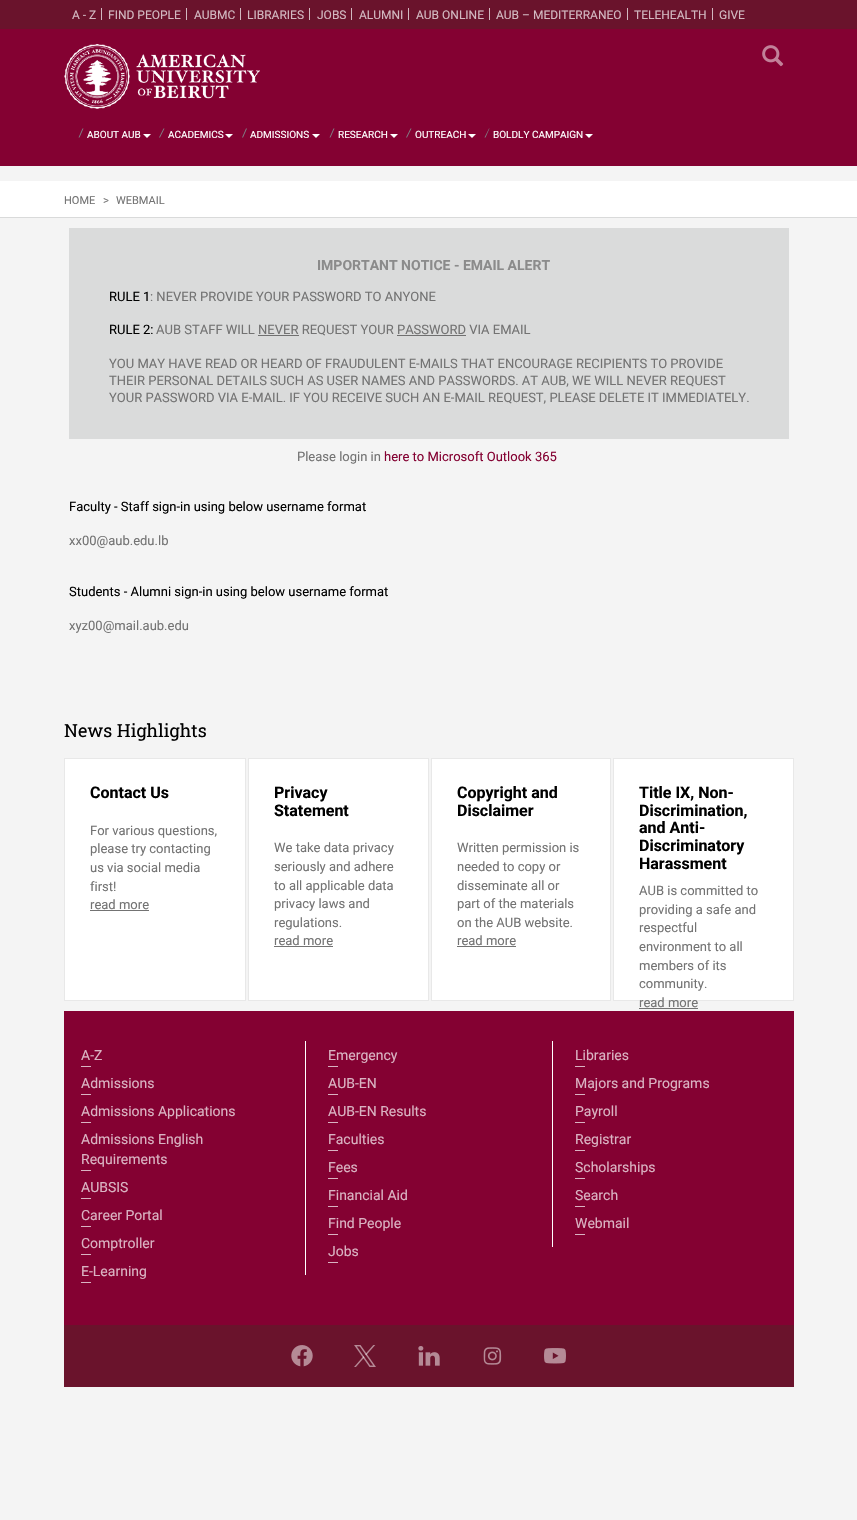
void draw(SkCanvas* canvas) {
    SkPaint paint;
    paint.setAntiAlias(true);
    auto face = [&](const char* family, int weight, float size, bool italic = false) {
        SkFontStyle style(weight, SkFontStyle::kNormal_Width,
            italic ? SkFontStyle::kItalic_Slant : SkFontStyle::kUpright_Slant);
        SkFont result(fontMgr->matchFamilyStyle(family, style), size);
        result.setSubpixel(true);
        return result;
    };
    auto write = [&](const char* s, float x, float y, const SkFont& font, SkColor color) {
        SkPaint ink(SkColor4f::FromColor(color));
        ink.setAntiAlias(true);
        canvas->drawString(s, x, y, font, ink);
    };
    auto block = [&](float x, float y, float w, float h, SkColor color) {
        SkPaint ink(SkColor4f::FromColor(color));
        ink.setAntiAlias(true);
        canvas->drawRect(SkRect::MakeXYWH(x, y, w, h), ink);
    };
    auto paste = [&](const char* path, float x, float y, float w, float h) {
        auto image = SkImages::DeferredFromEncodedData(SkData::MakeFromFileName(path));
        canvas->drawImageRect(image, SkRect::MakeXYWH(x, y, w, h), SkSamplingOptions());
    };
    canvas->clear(SkColorSetRGB(244, 244, 244));
    block(0, 0, 857, 29, SkColorSetRGB(106, 19, 44));
    auto kFont1 = face("Roboto", 400, 12);
    write("A - Z", 72, 19, kFont1, SkColorSetRGB(210, 184, 192));
    block(101, 8, 1, 12, SkColorSetRGB(210, 184, 192));
    write("FIND PEOPLE", 108, 19, kFont1, SkColorSetRGB(210, 184, 192));
    block(186, 8, 1, 12, SkColorSetRGB(210, 184, 192));
    write("AUBMC", 194, 19, kFont1, SkColorSetRGB(210, 184, 192));
    block(240, 8, 1, 12, SkColorSetRGB(210, 184, 192));
    write("LIBRARIES", 247, 19, kFont1, SkColorSetRGB(210, 184, 192));
    block(309, 8, 1, 12, SkColorSetRGB(210, 184, 192));
    write("JOBS", 317, 19, kFont1, SkColorSetRGB(210, 184, 192));
    block(351, 8, 1, 12, SkColorSetRGB(210, 184, 192));
    write("ALUMNI", 359, 19, kFont1, SkColorSetRGB(210, 184, 192));
    block(408, 8, 1, 12, SkColorSetRGB(210, 184, 192));
    write("AUB ONLINE", 416, 19, kFont1, SkColorSetRGB(210, 184, 192));
    block(489, 8, 1, 12, SkColorSetRGB(210, 184, 192));
    write("AUB – MEDITERRANEO", 496, 19, kFont1, SkColorSetRGB(210, 184, 192));
    block(627, 8, 1, 12, SkColorSetRGB(210, 184, 192));
    write("TELEHEALTH", 634, 19, kFont1, SkColorSetRGB(210, 184, 192));
    block(712, 8, 1, 12, SkColorSetRGB(210, 184, 192));
    write("GIVE", 719, 19, kFont1, SkColorSetRGB(210, 184, 192));
    block(0, 29, 857, 137, SkColorSetRGB(132, 1, 50));
    paste("pic1.png", 64, 44, 196, 65);
    paste("pic2.png", 762, 45, 22, 22);
    paint.setColor(SkColorSetRGB(126, 129, 133));
    canvas->drawPath(SkPathBuilder().moveTo(82.5f, 128.5f).lineTo(83.5f, 128.5f).lineTo(79.5f, 137.5f).lineTo(78.5f, 137.5f).close().detach(), paint);
    auto kFont2 = face("Roboto", 400, 10);
    write("ABOUT AUB", 87, 138, kFont2, SK_ColorWHITE);
    paint.setColor(SK_ColorWHITE);
    canvas->drawPath(SkPathBuilder().moveTo(143, 134).lineTo(151, 134).lineTo(147, 138).close().detach(), paint);
    paint.setColor(SkColorSetRGB(126, 129, 133));
    canvas->drawPath(SkPathBuilder().moveTo(163.5f, 128.5f).lineTo(164.5f, 128.5f).lineTo(160, 137.5f).lineTo(159, 137.5f).close().detach(), paint);
    write("ACADEMICS", 168, 138, kFont2, SK_ColorWHITE);
    paint.setColor(SK_ColorWHITE);
    canvas->drawPath(SkPathBuilder().moveTo(225, 134).lineTo(233, 134).lineTo(229, 138).close().detach(), paint);
    paint.setColor(SkColorSetRGB(126, 129, 133));
    canvas->drawPath(SkPathBuilder().moveTo(246, 128.5f).lineTo(247, 128.5f).lineTo(243, 137.5f).lineTo(242, 137.5f).close().detach(), paint);
    write("ADMISSIONS", 250, 138, kFont2, SK_ColorWHITE);
    paint.setColor(SK_ColorWHITE);
    canvas->drawPath(SkPathBuilder().moveTo(312, 134).lineTo(320, 134).lineTo(316, 138).close().detach(), paint);
    paint.setColor(SkColorSetRGB(126, 129, 133));
    canvas->drawPath(SkPathBuilder().moveTo(333.5f, 128.5f).lineTo(334.5f, 128.5f).lineTo(330.5f, 137.5f).lineTo(329.5f, 137.5f).close().detach(), paint);
    write("RESEARCH", 338, 138, kFont2, SK_ColorWHITE);
    paint.setColor(SK_ColorWHITE);
    canvas->drawPath(SkPathBuilder().moveTo(390, 134).lineTo(398, 134).lineTo(394, 138).close().detach(), paint);
    paint.setColor(SkColorSetRGB(126, 129, 133));
    canvas->drawPath(SkPathBuilder().moveTo(410.5f, 128.5f).lineTo(411.5f, 128.5f).lineTo(407, 137.5f).lineTo(406, 137.5f).close().detach(), paint);
    write("OUTREACH", 415, 138, kFont2, SK_ColorWHITE);
    paint.setColor(SK_ColorWHITE);
    canvas->drawPath(SkPathBuilder().moveTo(468, 134).lineTo(476, 134).lineTo(472, 138).close().detach(), paint);
    paint.setColor(SkColorSetRGB(126, 129, 133));
    canvas->drawPath(SkPathBuilder().moveTo(489, 128.5f).lineTo(489.5f, 128.5f).lineTo(485.5f, 137.5f).lineTo(484.5f, 137.5f).close().detach(), paint);
    write("BOLDLY CAMPAIGN", 493, 138, kFont2, SK_ColorWHITE);
    paint.setColor(SK_ColorWHITE);
    canvas->drawPath(SkPathBuilder().moveTo(585, 134).lineTo(593, 134).lineTo(589, 138).close().detach(), paint);
    block(0, 181, 857, 36, SK_ColorWHITE);
    block(0, 217, 857, 1, SkColorSetRGB(217, 218, 218));
    auto kFont3 = face("Roboto", 400, 11);
    write("HOME", 64, 204, kFont3, SkColorSetRGB(115, 115, 115));
    write(">", 103, 204, kFont3, SkColorSetRGB(115, 115, 115));
    write("WEBMAIL", 116, 204, kFont3, SkColorSetRGB(115, 115, 115));
    block(69, 228, 720, 211, SkColorSetRGB(218, 219, 219));
    auto kFont4 = face("Roboto", 700, 14);
    write("IMPORTANT NOTICE - EMAIL ALERT", 317, 270, kFont4, SkColorSetRGB(139, 139, 139));
    auto kFont5 = face("Roboto", 400, 13);
    write("RULE 1", 109, 301, kFont5, SK_ColorBLACK);
    write(": NEVER PROVIDE YOUR PASSWORD TO ANYONE", 150, 301, kFont5, SkColorSetRGB(115, 115, 115));
    write("RULE 2:", 109, 334, kFont5, SK_ColorBLACK);
    write("AUB STAFF WILL NEVER REQUEST YOUR PASSWORD VIA EMAIL", 156, 334, kFont5, SkColorSetRGB(115, 115, 115));
    block(258, 335, 41, 1, SkColorSetRGB(112, 112, 112));
    block(397, 335, 69, 1, SkColorSetRGB(112, 112, 112));
    write("YOU MAY HAVE READ OR HEARD OF FRAUDULENT E-MAILS THAT ENCOURAGE RECIPIENTS TO PROVIDE", 109, 368, kFont5, SkColorSetRGB(115, 115, 115));
    write("THEIR PERSONAL DETAILS SUCH AS USER NAMES AND PASSWORDS. AT AUB, WE WILL NEVER REQUEST", 109, 385, kFont5, SkColorSetRGB(115, 115, 115));
    write("YOUR PASSWORD VIA E-MAIL. IF YOU RECEIVE SUCH AN E-MAIL REQUEST, PLEASE DELETE IT IMMEDIATELY.", 109, 402, kFont5, SkColorSetRGB(115, 115, 115));
    write("Please login in", 297, 461, kFont5, SkColorSetRGB(115, 115, 115));
    write("here to Microsoft Outlook 365", 384, 461, kFont5, SkColorSetRGB(132, 1, 50));
    write("Faculty - Staff sign-in using below username format", 69, 511, kFont5, SK_ColorBLACK);
    write("xx00@aub.edu.lb", 69, 545, kFont5, SkColorSetRGB(115, 115, 115));
    write("Students - Alumni sign-in using below username format", 69, 596, kFont5, SK_ColorBLACK);
    write("xyz00@mail.aub.edu", 69, 630, kFont5, SkColorSetRGB(115, 115, 115));
    auto kFont6 = face("Roboto Slab", 400, 18);
    write("News Highlights", 64, 737, kFont6, SK_ColorBLACK);
    canvas->drawRect(SkRect::MakeXYWH(64.5f, 758.5f, 181, 242), paint);
    paint.setStyle(SkPaint::kStroke_Style);
    paint.setStrokeWidth(1);
    paint.setColor(SkColorSetRGB(232, 232, 232));
    canvas->drawRect(SkRect::MakeXYWH(64.5f, 758.5f, 181, 242), paint);
    auto kFont7 = face("Roboto", 700, 16);
    write("Contact Us", 90, 798, kFont7, SK_ColorBLACK);
    write("For various questions,", 90, 835, kFont5, SkColorSetRGB(115, 115, 115));
    write("please try contacting", 90, 853, kFont5, SkColorSetRGB(115, 115, 115));
    write("us via social media", 90, 872, kFont5, SkColorSetRGB(115, 115, 115));
    write("first!", 90, 891, kFont5, SkColorSetRGB(115, 115, 115));
    write("read more", 90, 909, kFont5, SkColorSetRGB(115, 115, 115));
    block(90, 910, 59, 1, SkColorSetRGB(115, 115, 115));
    paint.setStyle(SkPaint::kFill_Style);
    paint.setColor(SK_ColorWHITE);
    canvas->drawRect(SkRect::MakeXYWH(248.5f, 758.5f, 180, 242), paint);
    paint.setStyle(SkPaint::kStroke_Style);
    paint.setColor(SkColorSetRGB(232, 232, 232));
    canvas->drawRect(SkRect::MakeXYWH(248.5f, 758.5f, 180, 242), paint);
    write("Privacy", 274, 798, kFont7, SK_ColorBLACK);
    write("Statement", 274, 816, kFont7, SK_ColorBLACK);
    write("We take data privacy", 274, 852, kFont5, SkColorSetRGB(115, 115, 115));
    write("seriously and adhere", 274, 871, kFont5, SkColorSetRGB(115, 115, 115));
    write("to all applicable data", 274, 890, kFont5, SkColorSetRGB(115, 115, 115));
    write("privacy laws and", 274, 908, kFont5, SkColorSetRGB(115, 115, 115));
    write("regulations.", 274, 927, kFont5, SkColorSetRGB(115, 115, 115));
    write("read more", 274, 945, kFont5, SkColorSetRGB(115, 115, 115));
    block(274, 946, 59, 1, SkColorSetRGB(115, 115, 115));
    paint.setStyle(SkPaint::kFill_Style);
    paint.setColor(SK_ColorWHITE);
    canvas->drawRect(SkRect::MakeXYWH(431.5f, 758.5f, 179, 242), paint);
    paint.setStyle(SkPaint::kStroke_Style);
    paint.setColor(SkColorSetRGB(232, 232, 232));
    canvas->drawRect(SkRect::MakeXYWH(431.5f, 758.5f, 179, 242), paint);
    write("Copyright and", 457, 798, kFont7, SK_ColorBLACK);
    write("Disclaimer", 457, 816, kFont7, SK_ColorBLACK);
    write("Written permission is", 457, 852, kFont5, SkColorSetRGB(115, 115, 115));
    write("needed to copy or", 457, 871, kFont5, SkColorSetRGB(115, 115, 115));
    write("disseminate all or", 457, 890, kFont5, SkColorSetRGB(115, 115, 115));
    write("part of the materials", 457, 908, kFont5, SkColorSetRGB(115, 115, 115));
    write("on the AUB website.", 457, 927, kFont5, SkColorSetRGB(115, 115, 115));
    write("read more", 457, 945, kFont5, SkColorSetRGB(115, 115, 115));
    block(457, 946, 59, 1, SkColorSetRGB(115, 115, 115));
    paint.setStyle(SkPaint::kFill_Style);
    paint.setColor(SK_ColorWHITE);
    canvas->drawRect(SkRect::MakeXYWH(613.5f, 758.5f, 180, 242), paint);
    paint.setStyle(SkPaint::kStroke_Style);
    paint.setColor(SkColorSetRGB(232, 232, 232));
    canvas->drawRect(SkRect::MakeXYWH(613.5f, 758.5f, 180, 242), paint);
    write("Title IX, Non-", 639, 798, kFont7, SK_ColorBLACK);
    write("Discrimination,", 639, 816, kFont7, SK_ColorBLACK);
    write("and Anti-", 639, 833, kFont7, SK_ColorBLACK);
    write("Discriminatory", 639, 851, kFont7, SK_ColorBLACK);
    write("Harassment", 639, 869, kFont7, SK_ColorBLACK);
    write("AUB is committed to", 639, 895, kFont5, SkColorSetRGB(115, 115, 115));
    write("providing a safe and", 639, 914, kFont5, SkColorSetRGB(115, 115, 115));
    write("respectful", 639, 932, kFont5, SkColorSetRGB(115, 115, 115));
    write("environment to all", 639, 951, kFont5, SkColorSetRGB(115, 115, 115));
    write("members of its", 639, 970, kFont5, SkColorSetRGB(115, 115, 115));
    write("community.", 639, 988, kFont5, SkColorSetRGB(115, 115, 115));
    write("read more", 639, 1007, kFont5, SkColorSetRGB(115, 115, 115));
    block(639, 1008, 59, 1, SkColorSetRGB(115, 115, 115));
    block(64, 1011, 730, 314, SkColorSetRGB(132, 1, 50));
    auto kFont8 = face("Roboto", 400, 14);
    write("A-Z", 81, 1060, kFont8, SkColorSetRGB(218, 179, 194));
    block(81, 1066, 10, 1, SkColorSetRGB(218, 179, 194));
    write("Admissions", 81, 1088, kFont8, SkColorSetRGB(218, 179, 194));
    block(81, 1094, 10, 1, SkColorSetRGB(218, 179, 194));
    write("Admissions Applications", 81, 1116, kFont8, SkColorSetRGB(218, 179, 194));
    block(81, 1122, 10, 1, SkColorSetRGB(218, 179, 194));
    write("Admissions English", 81, 1144, kFont8, SkColorSetRGB(218, 179, 194));
    write("Requirements", 81, 1164, kFont8, SkColorSetRGB(218, 179, 194));
    block(81, 1170, 10, 1, SkColorSetRGB(218, 179, 194));
    write("AUBSIS", 81, 1192, kFont8, SkColorSetRGB(218, 179, 194));
    block(81, 1198, 10, 1, SkColorSetRGB(218, 179, 194));
    write("Career Portal", 81, 1220, kFont8, SkColorSetRGB(218, 179, 194));
    block(81, 1226, 10, 1, SkColorSetRGB(218, 179, 194));
    write("Comptroller", 81, 1248, kFont8, SkColorSetRGB(218, 179, 194));
    block(81, 1254, 10, 1, SkColorSetRGB(218, 179, 194));
    write("E-Learning", 81, 1276, kFont8, SkColorSetRGB(218, 179, 194));
    block(81, 1282, 10, 1, SkColorSetRGB(218, 179, 194));
    block(305, 1041, 1, 234, SK_ColorWHITE);
    write("Emergency", 328, 1060, kFont8, SkColorSetRGB(218, 179, 194));
    block(328, 1066, 10, 1, SkColorSetRGB(218, 179, 194));
    write("AUB-EN", 328, 1088, kFont8, SkColorSetRGB(218, 179, 194));
    block(328, 1094, 10, 1, SkColorSetRGB(218, 179, 194));
    write("AUB-EN Results", 328, 1116, kFont8, SkColorSetRGB(218, 179, 194));
    block(328, 1122, 10, 1, SkColorSetRGB(218, 179, 194));
    write("Faculties", 328, 1144, kFont8, SkColorSetRGB(218, 179, 194));
    block(328, 1150, 10, 1, SkColorSetRGB(218, 179, 194));
    write("Fees", 328, 1172, kFont8, SkColorSetRGB(218, 179, 194));
    block(328, 1178, 10, 1, SkColorSetRGB(218, 179, 194));
    write("Financial Aid", 328, 1200, kFont8, SkColorSetRGB(218, 179, 194));
    block(328, 1206, 10, 1, SkColorSetRGB(218, 179, 194));
    write("Find People", 328, 1228, kFont8, SkColorSetRGB(218, 179, 194));
    block(328, 1234, 10, 1, SkColorSetRGB(218, 179, 194));
    write("Jobs", 328, 1256, kFont8, SkColorSetRGB(218, 179, 194));
    block(328, 1262, 10, 1, SkColorSetRGB(218, 179, 194));
    block(552, 1041, 1, 206, SK_ColorWHITE);
    write("Libraries", 575, 1060, kFont8, SkColorSetRGB(218, 179, 194));
    block(575, 1066, 10, 1, SkColorSetRGB(218, 179, 194));
    write("Majors and Programs", 575, 1088, kFont8, SkColorSetRGB(218, 179, 194));
    block(575, 1094, 10, 1, SkColorSetRGB(218, 179, 194));
    write("Payroll", 575, 1116, kFont8, SkColorSetRGB(218, 179, 194));
    block(575, 1122, 10, 1, SkColorSetRGB(218, 179, 194));
    write("Registrar", 575, 1144, kFont8, SkColorSetRGB(218, 179, 194));
    block(575, 1150, 10, 1, SkColorSetRGB(218, 179, 194));
    write("Scholarships", 575, 1172, kFont8, SkColorSetRGB(218, 179, 194));
    block(575, 1178, 10, 1, SkColorSetRGB(218, 179, 194));
    write("Search", 575, 1200, kFont8, SkColorSetRGB(218, 179, 194));
    block(575, 1206, 10, 1, SkColorSetRGB(218, 179, 194));
    write("Webmail", 575, 1228, kFont8, SkColorSetRGB(218, 179, 194));
    block(575, 1234, 10, 1, SkColorSetRGB(218, 179, 194));
    block(64, 1325, 730, 62, SkColorSetRGB(106, 19, 44));
    paste("pic3.png", 291, 1345, 22, 22);
    paste("pic4.png", 354, 1345, 22, 22);
    paste("pic5.png", 418, 1346, 22, 20);
    paste("pic6.png", 483, 1347, 19, 18);
    paste("pic7.png", 544, 1348, 22, 16);
}
